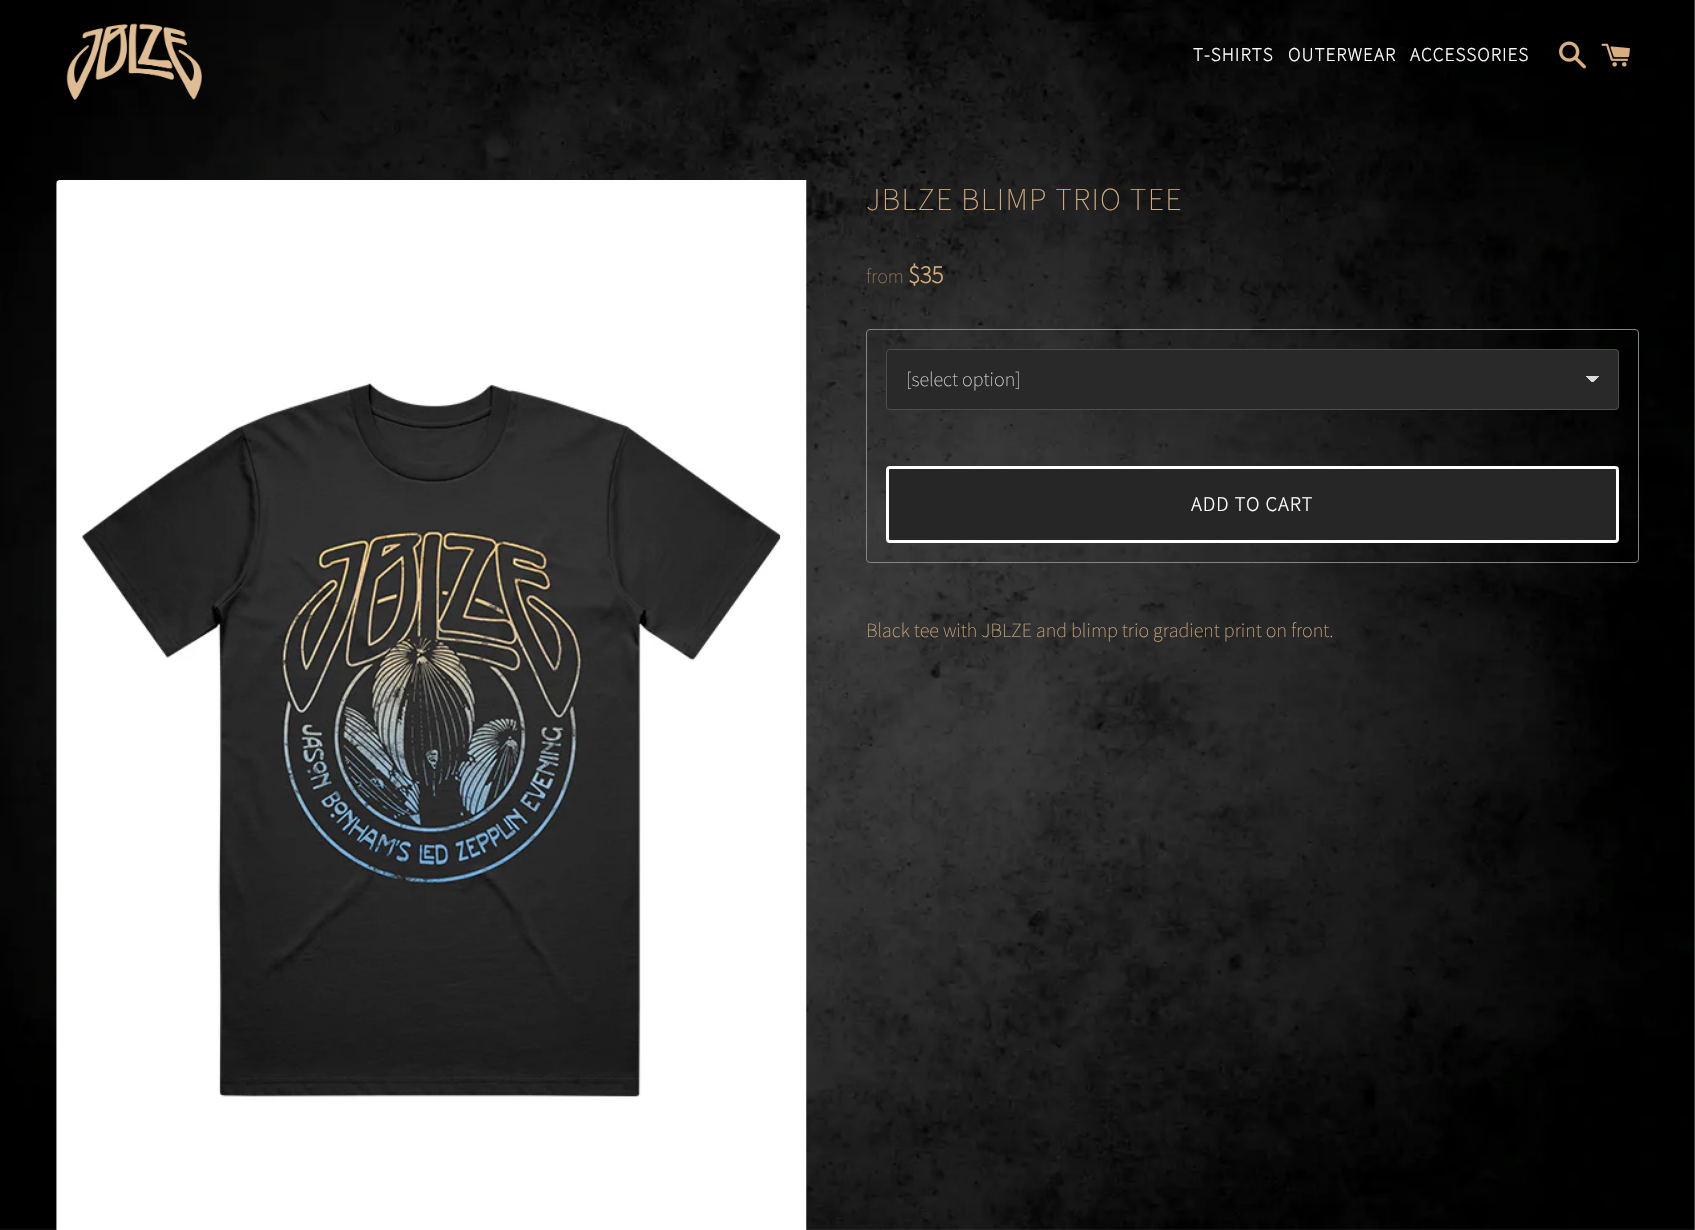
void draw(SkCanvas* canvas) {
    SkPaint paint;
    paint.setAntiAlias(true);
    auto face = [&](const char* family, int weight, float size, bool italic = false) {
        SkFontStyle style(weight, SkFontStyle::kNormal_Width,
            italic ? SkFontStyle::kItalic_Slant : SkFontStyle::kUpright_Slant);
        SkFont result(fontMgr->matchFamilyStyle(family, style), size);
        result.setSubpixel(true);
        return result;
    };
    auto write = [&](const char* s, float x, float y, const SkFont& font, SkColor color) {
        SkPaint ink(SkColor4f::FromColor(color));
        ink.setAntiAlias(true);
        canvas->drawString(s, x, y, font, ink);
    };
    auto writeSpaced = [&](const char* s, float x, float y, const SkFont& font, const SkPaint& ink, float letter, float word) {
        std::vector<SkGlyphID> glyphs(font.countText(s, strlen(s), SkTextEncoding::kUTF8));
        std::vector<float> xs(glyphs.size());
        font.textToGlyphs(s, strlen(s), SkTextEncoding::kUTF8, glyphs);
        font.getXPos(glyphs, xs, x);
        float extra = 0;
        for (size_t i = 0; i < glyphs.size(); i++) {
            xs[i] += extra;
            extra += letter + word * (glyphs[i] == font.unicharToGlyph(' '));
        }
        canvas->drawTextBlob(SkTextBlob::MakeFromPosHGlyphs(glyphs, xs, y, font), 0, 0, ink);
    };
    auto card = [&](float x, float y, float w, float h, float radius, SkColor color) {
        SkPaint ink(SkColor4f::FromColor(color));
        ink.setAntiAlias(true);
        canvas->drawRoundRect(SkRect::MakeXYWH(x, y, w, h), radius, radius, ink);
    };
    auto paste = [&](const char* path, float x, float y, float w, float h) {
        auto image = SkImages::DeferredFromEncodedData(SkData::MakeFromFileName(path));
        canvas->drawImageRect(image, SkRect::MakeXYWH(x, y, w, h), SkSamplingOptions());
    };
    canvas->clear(SK_ColorWHITE);
    paste("pic1.png", 0, 0, 1695, 1230);
    paste("pic2.png", 66, 23, 136, 78);
    auto kFont1 = face("Assistant", 700, 18.75f);
    paint.setColor(SK_ColorWHITE);
    writeSpaced("T-SHIRTS", 1193, 61, kFont1, paint, 1.25f, 0);
    writeSpaced("OUTERWEAR", 1288, 61, kFont1, paint, 1.25f, 0);
    writeSpaced("ACCESSORIES", 1410, 61, kFont1, paint, 1.25f, 0);
    paste("pic3.png", 1559, 41, 27, 28);
    paste("pic4.png", 1601, 43, 29, 24);
    paste("pic5.png", 56, 180, 751, 1050);
    auto kFont2 = face("Assistant", 200, 32);
    paint.setColor(SkColorSetRGB(215, 175, 127));
    writeSpaced("JBLZE BLIMP TRIO TEE", 866, 210, kFont2, paint, 1.25f, 0);
    auto kFont3 = face("Assistant", 200, 20);
    write("from", 866, 283, kFont3, SkColorSetRGB(154, 128, 97));
    auto kFont4 = face("Assistant", 700, 25);
    write("$35", 908, 283, kFont4, SkColorSetRGB(215, 175, 127));
    paint.setStyle(SkPaint::kStroke_Style);
    paint.setStrokeWidth(1);
    paint.setColor(SkColorSetRGB(133, 133, 133));
    canvas->drawRoundRect(SkRect::MakeXYWH(866.5f, 329.5f, 772, 233), 3.5f, 3.5f, paint);
    card(886, 349, 733, 61, 4, SkColorSetRGB(41, 41, 41));
    paint.setStyle(SkPaint::kFill_Style);
    {
        const SkColor colors[] = {SkColorSetRGB(217, 217, 217), SkColorSetRGB(41, 41, 41)};
        const float stops[] = {0.5f, 0.5f};
        const SkPoint ends[] = {{1593, 376}, {1599, 383}};
        paint.setShader(SkGradientShader::MakeLinear(ends, colors, stops, 2, SkTileMode::kClamp));
        paint.setAlpha(255);
    }
    canvas->drawRect(SkRect::MakeXYWH(1593, 376, 6, 7), paint);
    {
        const SkColor colors[] = {SkColorSetRGB(41, 41, 41), SkColorSetRGB(217, 217, 217)};
        const float stops[] = {0.5f, 0.5f};
        const SkPoint ends[] = {{1586, 383}, {1593, 376}};
        paint.setShader(SkGradientShader::MakeLinear(ends, colors, stops, 2, SkTileMode::kClamp));
        paint.setAlpha(255);
    }
    canvas->drawRect(SkRect::MakeXYWH(1586, 376, 7, 6), paint);
    paint.setStyle(SkPaint::kStroke_Style);
    paint.setShader(nullptr);
    paint.setColor(SkColorSetRGB(77, 77, 77));
    canvas->drawRoundRect(SkRect::MakeXYWH(886.5f, 349.5f, 732, 60), 3.5f, 3.5f, paint);
    write("[select option]", 906, 386, kFont3, SkColorSetRGB(217, 217, 217));
    paint.setStyle(SkPaint::kFill_Style);
    paint.setColor(SkColorSetRGB(39, 38, 39));
    canvas->drawRoundRect(SkRect::MakeXYWH(887.5f, 467.5f, 730, 74), 2.5f, 2.5f, paint);
    paint.setStyle(SkPaint::kStroke_Style);
    paint.setStrokeWidth(3);
    paint.setColor(SK_ColorWHITE);
    canvas->drawRoundRect(SkRect::MakeXYWH(887.5f, 467.5f, 730, 74), 2.5f, 2.5f, paint);
    auto kFont5 = face("Assistant", 700, 20);
    paint.setStyle(SkPaint::kFill_Style);
    writeSpaced("ADD TO CART", 1191, 511, kFont5, paint, 1.25f, 0);
    write("Black tee with JBLZE and blimp trio gradient print on front.", 866, 637, kFont3, SkColorSetRGB(215, 175, 127));
}
